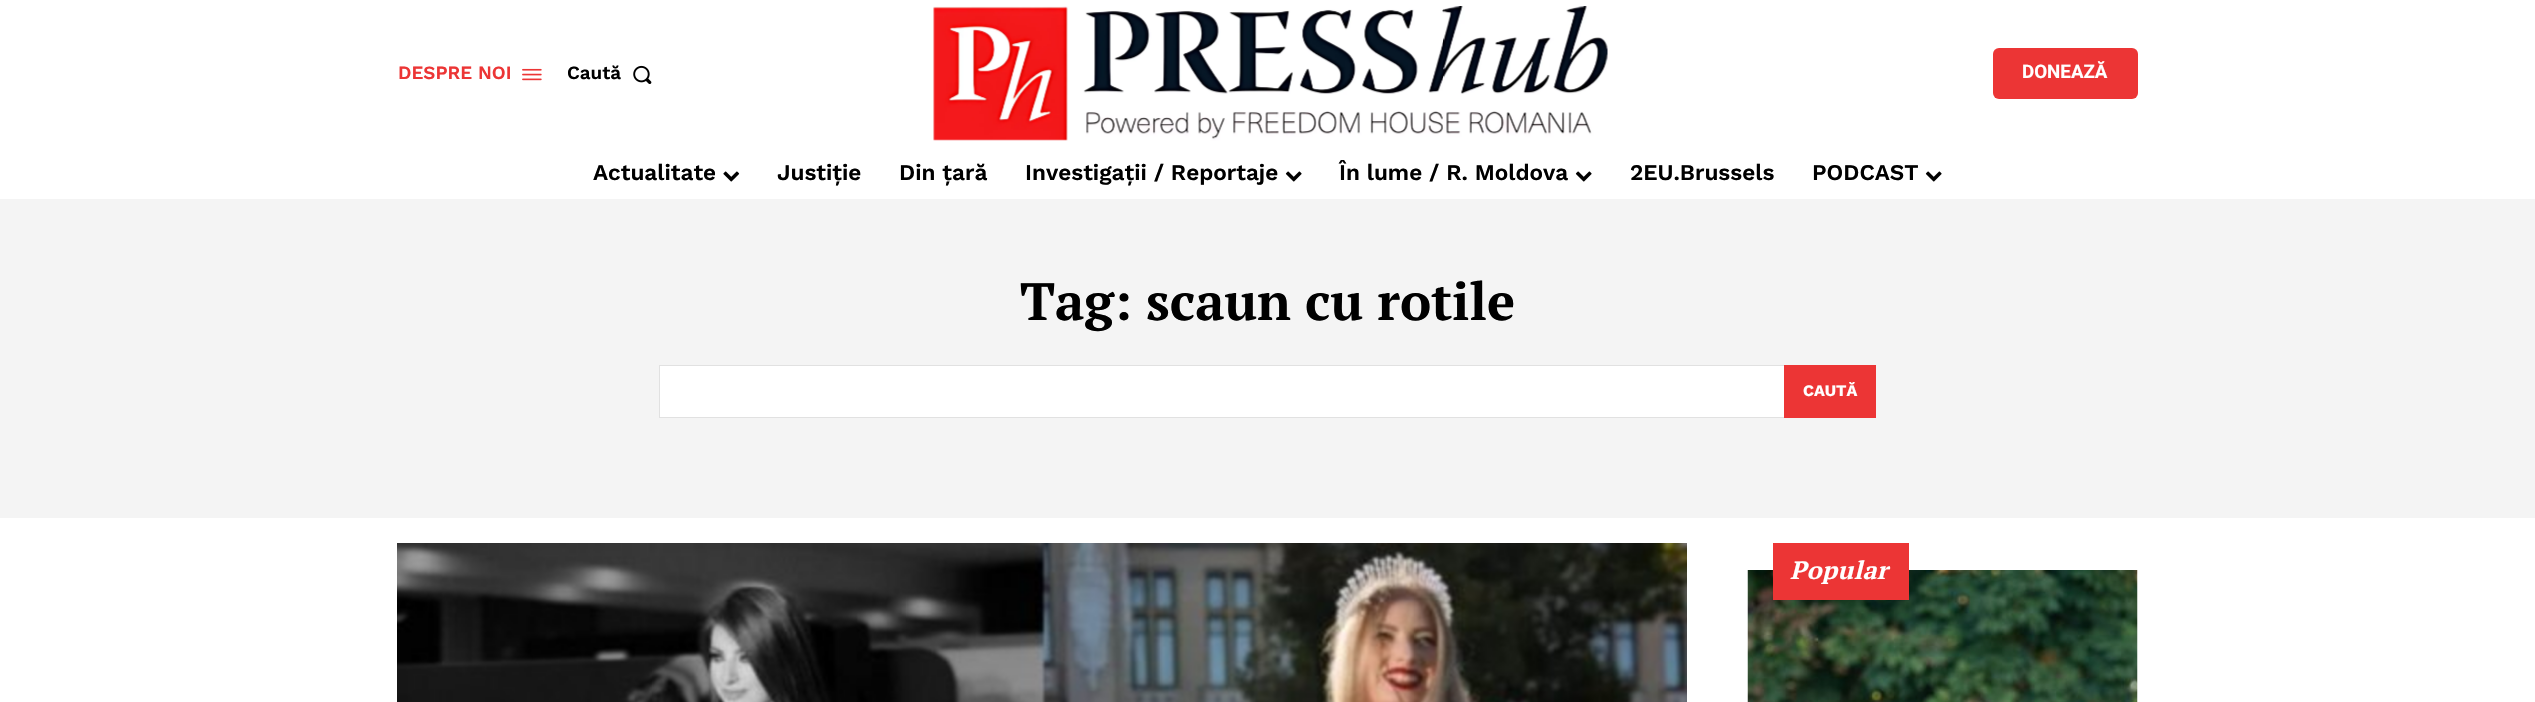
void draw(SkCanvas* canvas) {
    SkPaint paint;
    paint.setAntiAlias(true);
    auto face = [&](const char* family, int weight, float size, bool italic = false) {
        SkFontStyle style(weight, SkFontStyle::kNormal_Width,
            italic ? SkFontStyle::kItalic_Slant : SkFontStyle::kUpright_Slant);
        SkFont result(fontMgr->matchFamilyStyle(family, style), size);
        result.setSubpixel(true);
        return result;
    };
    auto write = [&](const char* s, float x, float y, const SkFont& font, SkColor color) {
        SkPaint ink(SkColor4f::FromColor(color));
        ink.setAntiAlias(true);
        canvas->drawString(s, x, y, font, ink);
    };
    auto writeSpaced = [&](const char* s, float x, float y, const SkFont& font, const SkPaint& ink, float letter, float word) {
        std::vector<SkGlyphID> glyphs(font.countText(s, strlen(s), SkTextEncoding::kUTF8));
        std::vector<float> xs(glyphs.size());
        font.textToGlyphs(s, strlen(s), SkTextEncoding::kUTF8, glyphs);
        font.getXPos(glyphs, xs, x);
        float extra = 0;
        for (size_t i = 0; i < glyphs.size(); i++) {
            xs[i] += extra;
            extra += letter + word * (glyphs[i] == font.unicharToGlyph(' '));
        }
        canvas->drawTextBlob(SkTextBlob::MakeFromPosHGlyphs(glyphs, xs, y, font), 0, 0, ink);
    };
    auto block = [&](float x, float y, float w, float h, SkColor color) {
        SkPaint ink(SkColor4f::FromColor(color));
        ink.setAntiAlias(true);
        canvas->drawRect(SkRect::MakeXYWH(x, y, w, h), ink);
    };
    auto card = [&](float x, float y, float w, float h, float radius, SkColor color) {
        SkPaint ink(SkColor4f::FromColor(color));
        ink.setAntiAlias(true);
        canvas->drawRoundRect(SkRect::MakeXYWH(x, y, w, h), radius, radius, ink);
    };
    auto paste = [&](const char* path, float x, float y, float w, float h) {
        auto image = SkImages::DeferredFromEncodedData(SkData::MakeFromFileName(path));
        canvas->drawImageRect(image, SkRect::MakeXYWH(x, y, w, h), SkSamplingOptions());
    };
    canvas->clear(SK_ColorWHITE);
    auto kFont1 = face("Work Sans", 600, 18.75f);
    write("DESPRE NOI", 398, 79, kFont1, SkColorSetRGB(236, 53, 53));
    paste("pic1.png", 522, 68, 20, 13);
    write("Caută", 567, 79, kFont1, SK_ColorBLACK);
    paste("pic2.png", 633, 65, 19, 19);
    paste("pic3.png", 933, 6, 675, 135);
    card(1993, 48, 145, 51, 6, SkColorSetRGB(236, 53, 53));
    auto kFont2 = face("Roboto", 700, 18.75f);
    write("DONEAZĂ", 2022, 78, kFont2, SK_ColorWHITE);
    auto kFont3 = face("Work Sans", 600, 22.5f);
    write("Actualitate", 593, 180, kFont3, SK_ColorBLACK);
    paste("pic4.png", 723, 171, 17, 11);
    write("Justiție", 777, 180, kFont3, SK_ColorBLACK);
    write("Din țară", 899, 180, kFont3, SK_ColorBLACK);
    write("Investigații / Reportaje", 1025, 180, kFont3, SK_ColorBLACK);
    paste("pic5.png", 1285, 171, 17, 11);
    write("În lume / R. Moldova", 1339, 180, kFont3, SK_ColorBLACK);
    paste("pic5.png", 1575, 171, 17, 11);
    write("2EU.Brussels", 1630, 180, kFont3, SK_ColorBLACK);
    write("PODCAST", 1812, 180, kFont3, SK_ColorBLACK);
    paste("pic5.png", 1925, 171, 17, 11);
    block(0, 199, 2535, 319, SkColorSetRGB(244, 244, 244));
    auto kFont4 = face("PT Serif", 700, 52.5f);
    write("Tag: scaun cu rotile", 1020, 320, kFont4, SK_ColorBLACK);
    block(660, 366, 1124, 51, SK_ColorWHITE);
    paint.setStyle(SkPaint::kStroke_Style);
    paint.setStrokeWidth(1);
    paint.setColor(SkColorSetRGB(225, 225, 225));
    canvas->drawRect(SkRect::MakeXYWH(659.5f, 365.5f, 1216, 52), paint);
    block(1784, 365, 92, 53, SkColorSetRGB(236, 53, 53));
    auto kFont5 = face("Work Sans", 700, 16);
    write("CAUTĂ", 1803, 396, kFont5, SK_ColorWHITE);
    paste("pic6.png", 397, 543, 1290, 159);
    paste("pic7.png", 1747, 570, 391, 132);
    block(1773, 543, 136, 57, SkColorSetRGB(236, 53, 53));
    auto kFont6 = face("PT Serif", 700, 25, true);
    paint.setStyle(SkPaint::kFill_Style);
    paint.setColor(SK_ColorWHITE);
    writeSpaced("Popular", 1790, 579, kFont6, paint, 0.5f, 0);
}
